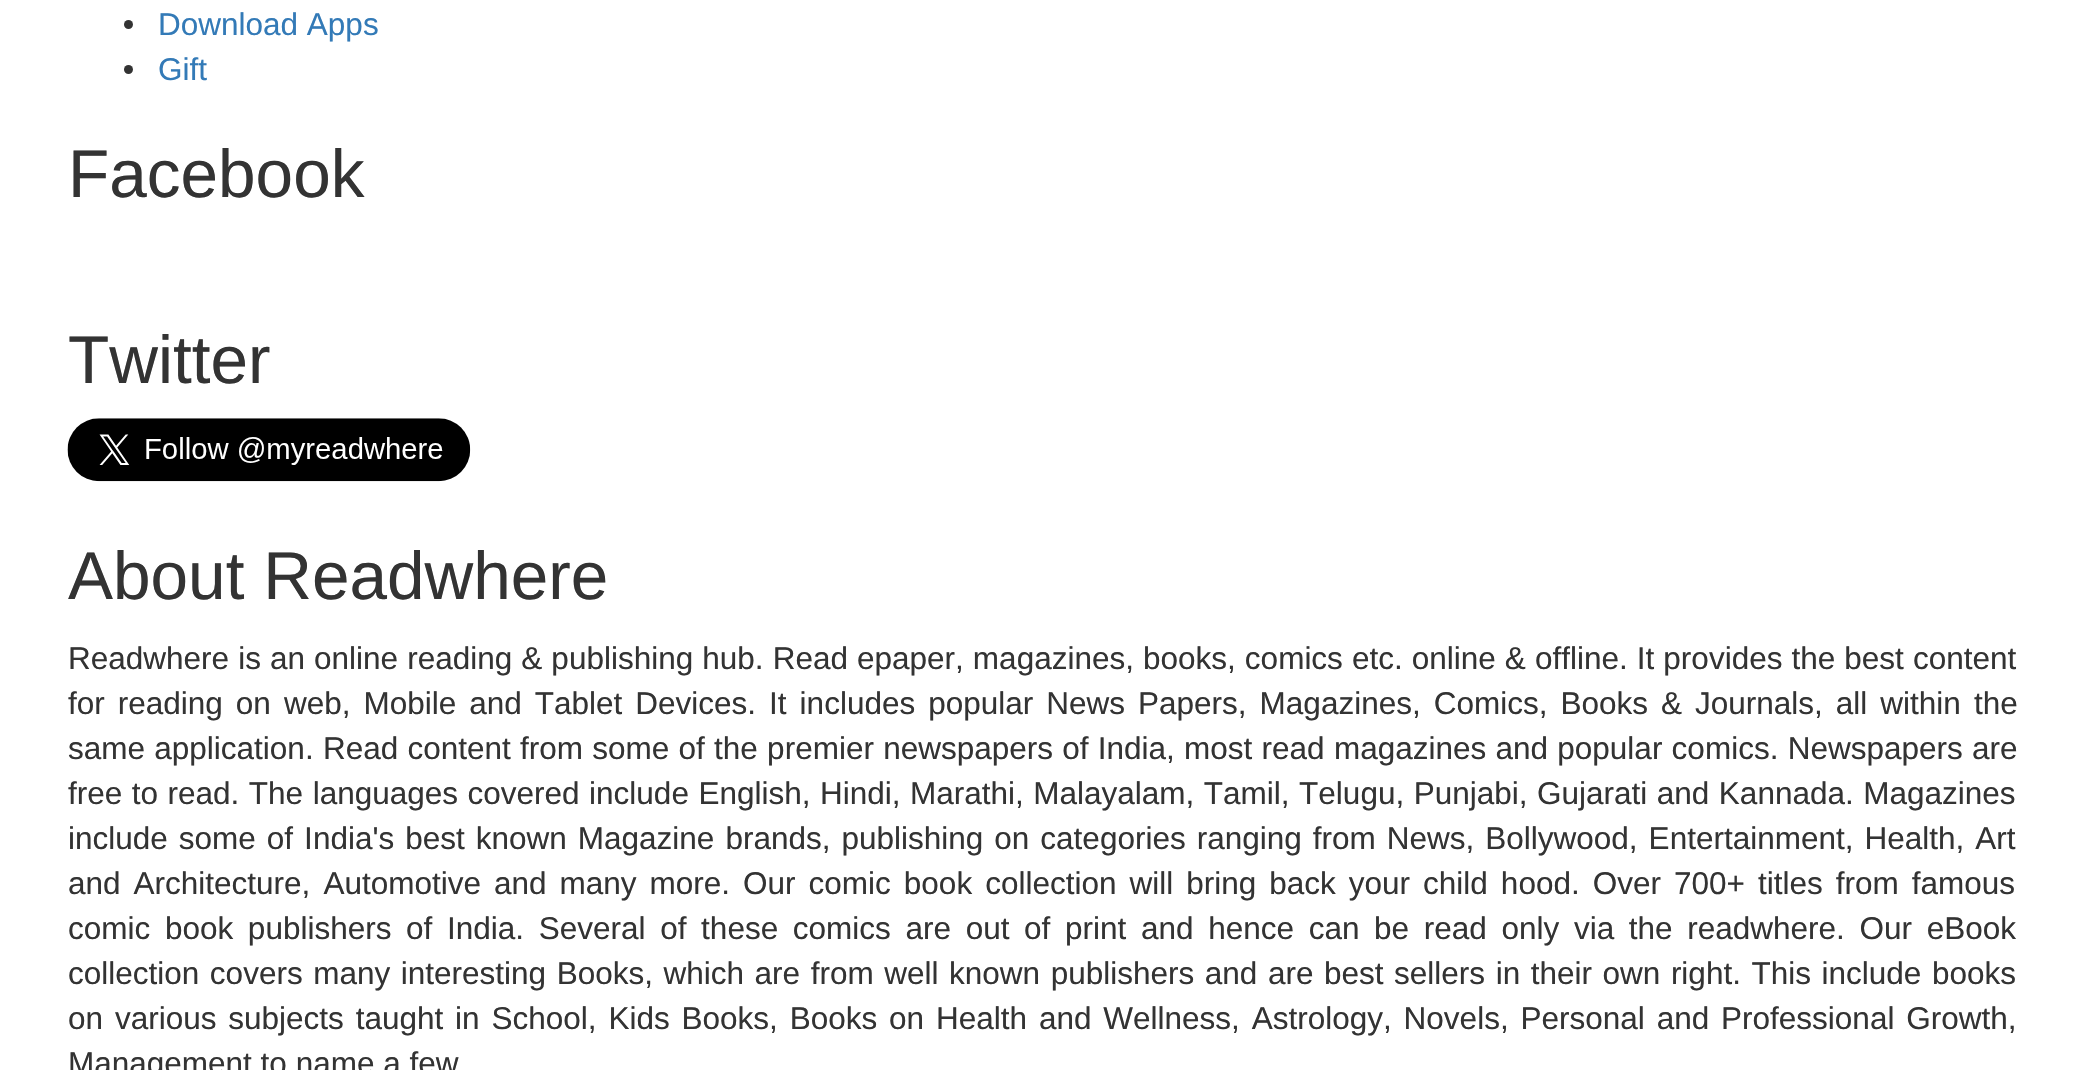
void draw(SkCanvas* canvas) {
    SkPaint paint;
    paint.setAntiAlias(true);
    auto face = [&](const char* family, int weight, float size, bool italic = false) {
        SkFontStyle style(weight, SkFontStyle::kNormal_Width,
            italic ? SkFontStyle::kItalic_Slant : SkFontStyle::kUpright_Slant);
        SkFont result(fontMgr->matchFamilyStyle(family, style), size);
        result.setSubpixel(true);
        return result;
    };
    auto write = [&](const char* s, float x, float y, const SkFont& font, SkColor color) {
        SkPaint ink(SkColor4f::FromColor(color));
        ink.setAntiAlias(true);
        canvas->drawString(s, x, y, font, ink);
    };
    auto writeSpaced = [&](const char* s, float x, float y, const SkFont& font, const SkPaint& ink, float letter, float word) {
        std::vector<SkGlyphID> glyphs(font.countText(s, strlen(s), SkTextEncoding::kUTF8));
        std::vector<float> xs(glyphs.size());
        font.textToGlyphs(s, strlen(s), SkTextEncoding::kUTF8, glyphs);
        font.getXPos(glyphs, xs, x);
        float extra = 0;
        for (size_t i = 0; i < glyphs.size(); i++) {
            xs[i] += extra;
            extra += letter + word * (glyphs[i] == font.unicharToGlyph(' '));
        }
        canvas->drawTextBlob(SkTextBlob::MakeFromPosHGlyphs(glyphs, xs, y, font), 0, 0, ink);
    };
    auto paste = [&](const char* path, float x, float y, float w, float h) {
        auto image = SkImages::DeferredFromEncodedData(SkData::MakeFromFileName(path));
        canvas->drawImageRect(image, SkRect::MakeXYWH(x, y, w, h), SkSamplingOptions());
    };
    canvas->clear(SK_ColorWHITE);
    paint.setColor(SkColorSetRGB(51, 51, 51));
    canvas->drawCircle(128.5f, 24.5f, 4.5f, paint);
    auto kFont1 = face("Liberation Sans", 400, 31.5f);
    write("Download Apps", 158, 35, kFont1, SkColorSetRGB(51, 122, 183));
    canvas->drawCircle(128.5f, 69.5f, 4.5f, paint);
    write("Gift", 158, 80, kFont1, SkColorSetRGB(51, 122, 183));
    auto kFont2 = face("Liberation Sans", 400, 67.5f);
    write("Facebook", 68, 197, kFont2, SkColorSetRGB(51, 51, 51));
    write("Twitter", 68, 383, kFont2, SkColorSetRGB(51, 51, 51));
    paste("pic1.png", 67, 418, 404, 64);
    write("About Readwhere", 68, 599, kFont2, SkColorSetRGB(51, 51, 51));
    writeSpaced("Readwhere is an online reading & publishing hub. Read epaper, magazines, books, comics etc. online & offline. It provides the best content", 68, 669, kFont1, paint, 0, 0.3f);
    writeSpaced("for reading on web, Mobile and Tablet Devices. It includes popular News Papers, Magazines, Comics, Books & Journals, all within the", 68, 714, kFont1, paint, 0, 4.25f);
    writeSpaced("same application. Read content from some of the premier newspapers of India, most read magazines and popular comics. Newspapers are", 68, 759, kFont1, paint, 0, 0.5f);
    writeSpaced("free to read. The languages covered include English, Hindi, Marathi, Malayalam, Tamil, Telugu, Punjabi, Gujarati and Kannada. Magazines", 68, 804, kFont1, paint, 0, 0.75f);
    writeSpaced("include some of India's best known Magazine brands, publishing on categories ranging from News, Bollywood, Entertainment, Health, Art", 68, 849, kFont1, paint, 0, 2.25f);
    writeSpaced("and Architecture, Automotive and many more. Our comic book collection will bring back your child hood. Over 700+ titles from famous", 68, 894, kFont1, paint, 0, 4.25f);
    writeSpaced("comic book publishers of India. Several of these comics are out of print and hence can be read only via the readwhere. Our eBook", 68, 939, kFont1, paint, 0, 5.9f);
    writeSpaced("collection covers many interesting Books, which are from well known publishers and are best sellers in their own right. This include books", 68, 984, kFont1, paint, 0, 1.8f);
    writeSpaced("on various subjects taught in School, Kids Books, Books on Health and Wellness, Astrology, Novels, Personal and Professional Growth,", 68, 1029, kFont1, paint, 0, 3.1f);
    write("Management to name a few", 68, 1074, kFont1, SkColorSetRGB(51, 51, 51));
}
